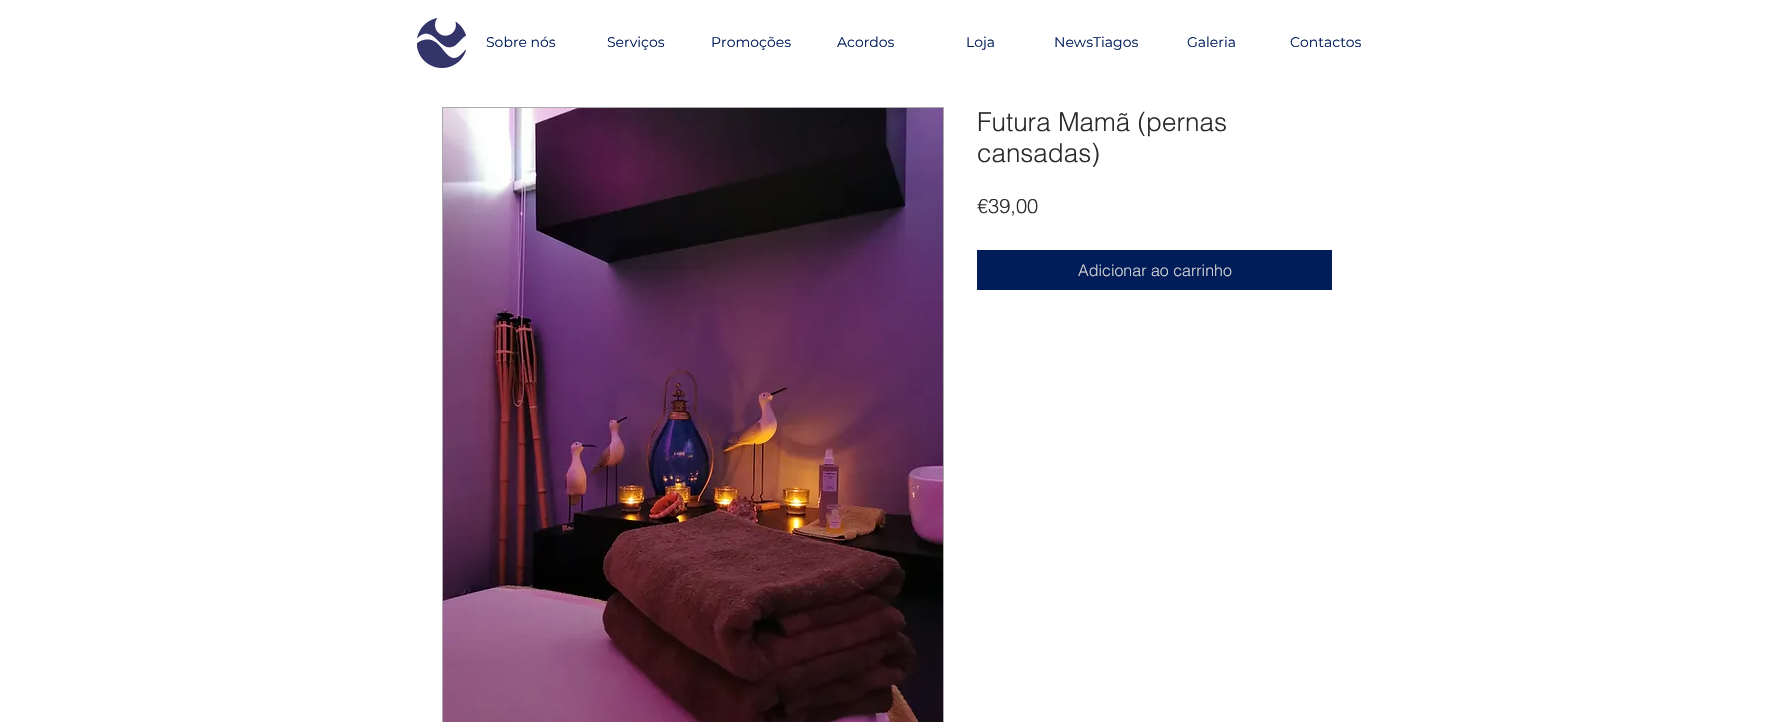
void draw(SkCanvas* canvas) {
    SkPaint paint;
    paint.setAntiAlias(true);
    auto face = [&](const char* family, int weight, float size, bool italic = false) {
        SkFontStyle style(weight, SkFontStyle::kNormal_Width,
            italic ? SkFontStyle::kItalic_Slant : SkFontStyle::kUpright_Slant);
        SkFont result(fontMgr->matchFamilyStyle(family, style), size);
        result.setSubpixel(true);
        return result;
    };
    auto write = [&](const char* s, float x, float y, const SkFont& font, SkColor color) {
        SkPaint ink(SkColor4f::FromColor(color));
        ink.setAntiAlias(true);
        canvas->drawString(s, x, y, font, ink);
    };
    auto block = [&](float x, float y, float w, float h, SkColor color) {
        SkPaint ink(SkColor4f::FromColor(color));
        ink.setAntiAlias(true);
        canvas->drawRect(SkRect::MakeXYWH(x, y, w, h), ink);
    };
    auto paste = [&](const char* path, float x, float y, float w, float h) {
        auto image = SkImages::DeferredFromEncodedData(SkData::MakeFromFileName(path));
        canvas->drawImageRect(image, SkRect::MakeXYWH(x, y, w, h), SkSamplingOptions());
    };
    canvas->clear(SK_ColorWHITE);
    paste("pic1.png", 417, 18, 49, 50);
    auto kFont1 = face("Montserrat", 400, 14);
    write("Sobre nós", 486, 47, kFont1, SkColorSetRGB(0, 28, 89));
    write("Serviços", 607, 47, kFont1, SkColorSetRGB(0, 28, 89));
    write("Promoções", 711, 47, kFont1, SkColorSetRGB(0, 28, 89));
    write("Acordos", 837, 47, kFont1, SkColorSetRGB(0, 28, 89));
    write("Loja", 966, 47, kFont1, SkColorSetRGB(0, 28, 89));
    write("NewsTiagos", 1054, 47, kFont1, SkColorSetRGB(0, 28, 89));
    write("Galeria", 1187, 47, kFont1, SkColorSetRGB(0, 28, 89));
    write("Contactos", 1290, 47, kFont1, SkColorSetRGB(0, 28, 89));
    paint.setStyle(SkPaint::kStroke_Style);
    paint.setStrokeWidth(1);
    paint.setColor(SkColorSetRGB(170, 170, 170));
    canvas->drawRect(SkRect::MakeXYWH(442.5f, 107.5f, 501, 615), paint);
    paste("pic2.png", 443, 108, 500, 614);
    auto kFont2 = face("helvetica", 300, 26);
    write("Futura Mamã (pernas", 977, 131, kFont2, SkColorSetRGB(42, 42, 42));
    write("cansadas)", 977, 162, kFont2, SkColorSetRGB(42, 42, 42));
    auto kFont3 = face("helvetica", 300, 20);
    write("€39,00", 977, 213, kFont3, SkColorSetRGB(42, 42, 42));
    block(977, 250, 355, 40, SkColorSetRGB(0, 28, 89));
    auto kFont4 = face("helvetica", 300, 16);
    write("Adicionar ao carrinho", 1078, 276, kFont4, SkColorSetRGB(213, 213, 213));
}
